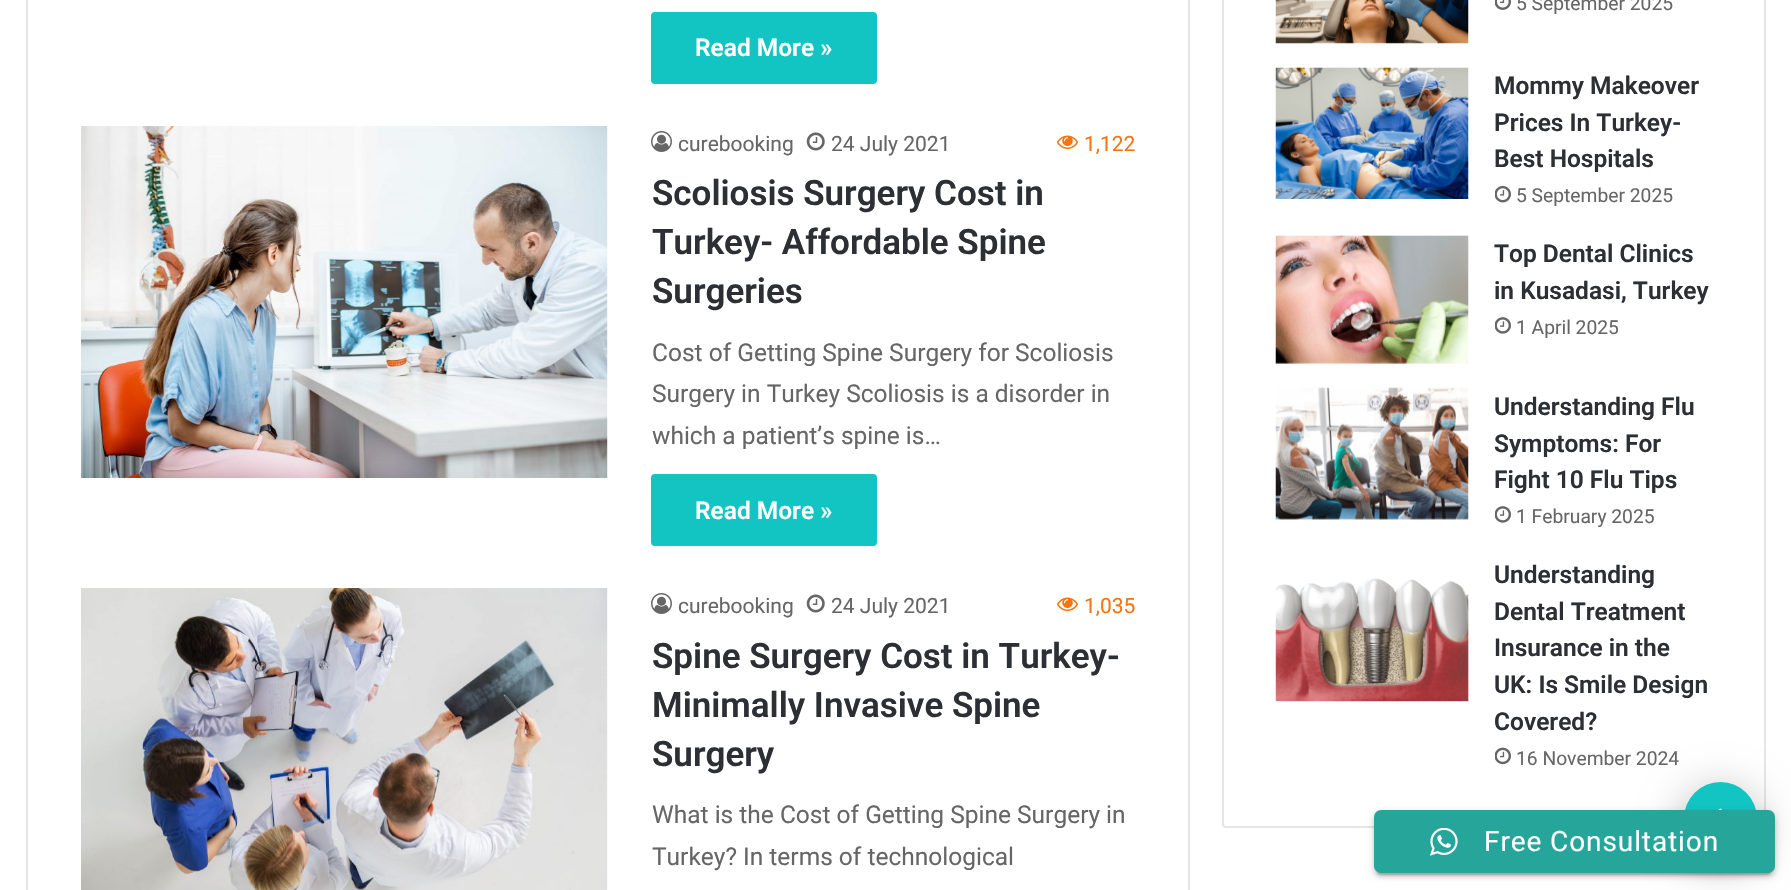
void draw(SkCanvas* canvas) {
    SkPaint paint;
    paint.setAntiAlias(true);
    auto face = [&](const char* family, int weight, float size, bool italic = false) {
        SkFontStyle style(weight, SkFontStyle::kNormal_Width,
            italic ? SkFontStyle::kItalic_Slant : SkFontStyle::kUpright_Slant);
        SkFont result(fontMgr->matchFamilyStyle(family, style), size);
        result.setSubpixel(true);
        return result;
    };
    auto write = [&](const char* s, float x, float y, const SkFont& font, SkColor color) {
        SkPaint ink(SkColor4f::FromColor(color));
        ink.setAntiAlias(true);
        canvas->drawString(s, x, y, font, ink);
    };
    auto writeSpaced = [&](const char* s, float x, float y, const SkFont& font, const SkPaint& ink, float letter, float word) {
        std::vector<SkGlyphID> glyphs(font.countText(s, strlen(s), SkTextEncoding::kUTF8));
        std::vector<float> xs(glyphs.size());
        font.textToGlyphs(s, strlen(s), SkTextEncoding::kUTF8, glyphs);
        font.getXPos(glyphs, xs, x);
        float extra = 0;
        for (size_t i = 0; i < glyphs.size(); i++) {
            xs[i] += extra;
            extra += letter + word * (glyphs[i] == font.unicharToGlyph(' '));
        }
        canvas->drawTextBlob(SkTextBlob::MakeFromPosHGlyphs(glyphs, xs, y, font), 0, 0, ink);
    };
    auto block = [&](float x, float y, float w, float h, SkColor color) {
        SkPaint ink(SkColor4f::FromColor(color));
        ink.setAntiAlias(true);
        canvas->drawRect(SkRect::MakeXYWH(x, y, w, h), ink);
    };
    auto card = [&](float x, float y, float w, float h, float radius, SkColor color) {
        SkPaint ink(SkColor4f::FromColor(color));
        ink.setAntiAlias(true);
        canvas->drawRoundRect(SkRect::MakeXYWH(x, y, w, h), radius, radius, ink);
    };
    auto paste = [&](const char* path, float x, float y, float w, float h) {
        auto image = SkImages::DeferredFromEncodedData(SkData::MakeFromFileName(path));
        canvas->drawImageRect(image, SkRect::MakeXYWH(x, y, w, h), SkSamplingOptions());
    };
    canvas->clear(SK_ColorWHITE);
    block(1188, 0, 2, 890, SkColorSetRGB(230, 230, 230));
    block(26, 0, 2, 890, SkColorSetRGB(230, 230, 230));
    card(651, 12, 226, 72, 4, SkColorSetRGB(18, 197, 195));
    auto kFont1 = face("Roboto", 600, 24.5f);
    write("Read More »", 695, 56, kFont1, SK_ColorWHITE);
    paste("pic1.png", 81, 126, 527, 352);
    paste("pic2.png", 651, 131, 21, 21);
    auto kFont2 = face("Roboto", 400, 21);
    write("curebooking", 678, 151, kFont2, SkColorSetRGB(102, 102, 102));
    paste("pic3.png", 806, 132, 19, 19);
    write("24 July 2021", 831, 151, kFont2, SkColorSetRGB(102, 102, 102));
    paste("pic4.png", 1057, 135, 21, 14);
    write("1,122", 1084, 151, kFont2, SkColorSetRGB(244, 117, 18));
    auto kFont3 = face("Roboto", 600, 35);
    write("Scoliosis Surgery Cost in", 652, 205, kFont3, SkColorSetRGB(44, 47, 52));
    write("Turkey- Affordable Spine", 652, 254, kFont3, SkColorSetRGB(44, 47, 52));
    write("Surgeries", 652, 303, kFont3, SkColorSetRGB(44, 47, 52));
    auto kFont4 = face("Roboto", 400, 24.5f);
    write("Cost of Getting Spine Surgery for Scoliosis", 652, 361, kFont4, SkColorSetRGB(102, 102, 102));
    write("Surgery in Turkey Scoliosis is a disorder in", 652, 402, kFont4, SkColorSetRGB(102, 102, 102));
    write("which a patient’s spine is…", 652, 444, kFont4, SkColorSetRGB(102, 102, 102));
    card(651, 474, 226, 72, 4, SkColorSetRGB(18, 197, 195));
    write("Read More »", 695, 519, kFont1, SK_ColorWHITE);
    paste("pic5.png", 81, 588, 527, 302);
    paste("pic2.png", 651, 593, 21, 21);
    write("curebooking", 678, 613, kFont2, SkColorSetRGB(102, 102, 102));
    paste("pic3.png", 806, 594, 19, 19);
    write("24 July 2021", 831, 613, kFont2, SkColorSetRGB(102, 102, 102));
    paste("pic4.png", 1057, 597, 21, 14);
    write("1,035", 1084, 613, kFont2, SkColorSetRGB(244, 117, 18));
    write("Spine Surgery Cost in Turkey-", 652, 668, kFont3, SkColorSetRGB(44, 47, 52));
    write("Minimally Invasive Spine", 652, 717, kFont3, SkColorSetRGB(44, 47, 52));
    write("Surgery", 652, 766, kFont3, SkColorSetRGB(44, 47, 52));
    write("What is the Cost of Getting Spine Surgery in", 652, 823, kFont4, SkColorSetRGB(102, 102, 102));
    write("Turkey? In terms of technological", 652, 865, kFont4, SkColorSetRGB(102, 102, 102));
    paint.setStyle(SkPaint::kStroke_Style);
    paint.setStrokeWidth(2);
    paint.setColor(SkColorSetRGB(230, 230, 230));
    canvas->drawRoundRect(SkRect::MakeXYWH(1223, -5, 542, 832), 3, 3, paint);
    paste("pic6.png", 1275, 0, 194, 44);
    paste("pic7.png", 1495, 0, 16, 10);
    auto kFont5 = face("Roboto", 400, 19.25f);
    write("5 September 2025", 1516, 10, kFont5, SkColorSetRGB(102, 102, 102));
    paste("pic8.png", 1275, 67, 194, 132);
    write("Mommy Makeover", 1494, 94, kFont1, SkColorSetRGB(44, 47, 52));
    write("Prices In Turkey-", 1494, 131, kFont1, SkColorSetRGB(44, 47, 52));
    write("Best Hospitals", 1494, 167, kFont1, SkColorSetRGB(44, 47, 52));
    paste("pic9.png", 1495, 185, 16, 18);
    write("5 September 2025", 1516, 202, kFont5, SkColorSetRGB(102, 102, 102));
    paste("pic10.png", 1275, 235, 194, 129);
    write("Top Dental Clinics", 1494, 262, kFont1, SkColorSetRGB(44, 47, 52));
    write("in Kusadasi, Turkey", 1494, 299, kFont1, SkColorSetRGB(44, 47, 52));
    paste("pic11.png", 1495, 317, 16, 17);
    write("1 April 2025", 1516, 334, kFont5, SkColorSetRGB(102, 102, 102));
    paste("pic12.png", 1275, 387, 194, 133);
    write("Understanding Flu", 1494, 415, kFont1, SkColorSetRGB(44, 47, 52));
    write("Symptoms: For", 1494, 452, kFont1, SkColorSetRGB(44, 47, 52));
    write("Fight 10 Flu Tips", 1494, 488, kFont1, SkColorSetRGB(44, 47, 52));
    paste("pic11.png", 1495, 506, 16, 17);
    write("1 February 2025", 1516, 523, kFont5, SkColorSetRGB(102, 102, 102));
    paste("pic13.png", 1275, 578, 194, 124);
    write("Understanding", 1494, 583, kFont1, SkColorSetRGB(44, 47, 52));
    write("Dental Treatment", 1494, 620, kFont1, SkColorSetRGB(44, 47, 52));
    write("Insurance in the", 1494, 656, kFont1, SkColorSetRGB(44, 47, 52));
    write("UK: Is Smile Design", 1494, 693, kFont1, SkColorSetRGB(44, 47, 52));
    write("Covered?", 1494, 730, kFont1, SkColorSetRGB(44, 47, 52));
    paste("pic14.png", 1495, 747, 16, 18);
    write("16 November 2024", 1516, 765, kFont5, SkColorSetRGB(102, 102, 102));
    paint.setStyle(SkPaint::kFill_Style);
    paint.setColor(SkColorSetARGB(77, 0, 0, 0));
    paint.setMaskFilter(SkMaskFilter::MakeBlur(kNormal_SkBlurStyle, 22));
    canvas->drawRoundRect(SkRect::MakeXYWH(1684, 791, 73, 74), 36.5f, 36.5f, paint);
    paint.setMaskFilter(nullptr);
    card(1684, 782, 73, 74, 36.5f, SkColorSetRGB(18, 197, 195));
    paste("pic15.png", 1718, 808, 4, 2);
    paint.setColor(SkColorSetARGB(51, 0, 0, 0));
    paint.setMaskFilter(SkMaskFilter::MakeBlur(kNormal_SkBlurStyle, 1));
    canvas->drawRoundRect(SkRect::MakeXYWH(1377, 819, 394, 56), 4, 4, paint);
    paint.setMaskFilter(nullptr);
    paint.setColor(SkColorSetARGB(31, 0, 0, 0));
    paint.setMaskFilter(SkMaskFilter::MakeBlur(kNormal_SkBlurStyle, 4.5f));
    canvas->drawRoundRect(SkRect::MakeXYWH(1374, 812, 401, 63), 7, 7, paint);
    paint.setMaskFilter(nullptr);
    paint.setColor(SkColorSetARGB(36, 0, 0, 0));
    paint.setMaskFilter(SkMaskFilter::MakeBlur(kNormal_SkBlurStyle, 2));
    canvas->drawRoundRect(SkRect::MakeXYWH(1374, 814, 401, 63), 7, 7, paint);
    paint.setMaskFilter(nullptr);
    card(1374, 810, 401, 63, 7, SkColorSetRGB(38, 166, 154));
    paste("pic16.png", 1430, 828, 28, 28);
    auto kFont6 = face("Roboto", 400, 28);
    paint.setColor(SK_ColorWHITE);
    writeSpaced("Free Consultation", 1484, 851, kFont6, paint, 0.9f, 0);
}
